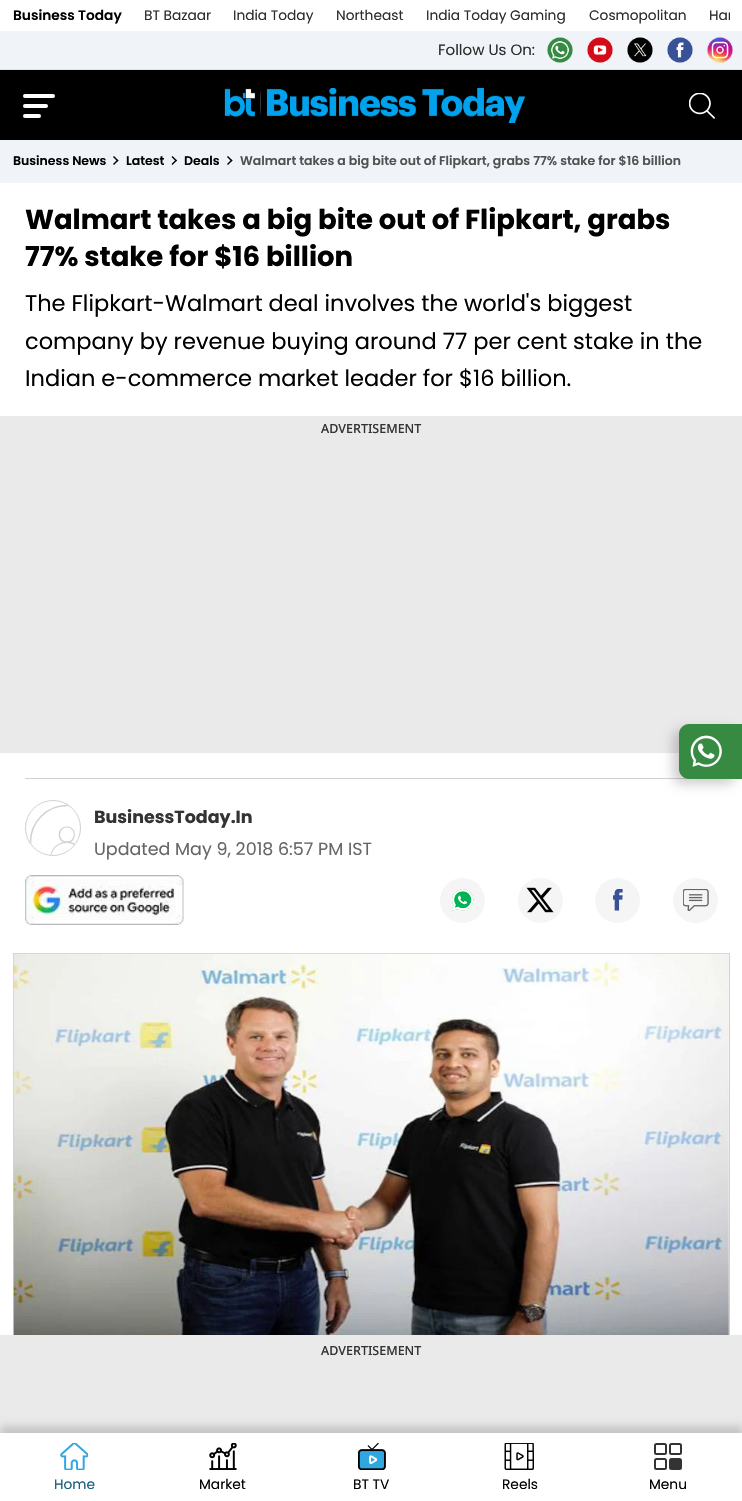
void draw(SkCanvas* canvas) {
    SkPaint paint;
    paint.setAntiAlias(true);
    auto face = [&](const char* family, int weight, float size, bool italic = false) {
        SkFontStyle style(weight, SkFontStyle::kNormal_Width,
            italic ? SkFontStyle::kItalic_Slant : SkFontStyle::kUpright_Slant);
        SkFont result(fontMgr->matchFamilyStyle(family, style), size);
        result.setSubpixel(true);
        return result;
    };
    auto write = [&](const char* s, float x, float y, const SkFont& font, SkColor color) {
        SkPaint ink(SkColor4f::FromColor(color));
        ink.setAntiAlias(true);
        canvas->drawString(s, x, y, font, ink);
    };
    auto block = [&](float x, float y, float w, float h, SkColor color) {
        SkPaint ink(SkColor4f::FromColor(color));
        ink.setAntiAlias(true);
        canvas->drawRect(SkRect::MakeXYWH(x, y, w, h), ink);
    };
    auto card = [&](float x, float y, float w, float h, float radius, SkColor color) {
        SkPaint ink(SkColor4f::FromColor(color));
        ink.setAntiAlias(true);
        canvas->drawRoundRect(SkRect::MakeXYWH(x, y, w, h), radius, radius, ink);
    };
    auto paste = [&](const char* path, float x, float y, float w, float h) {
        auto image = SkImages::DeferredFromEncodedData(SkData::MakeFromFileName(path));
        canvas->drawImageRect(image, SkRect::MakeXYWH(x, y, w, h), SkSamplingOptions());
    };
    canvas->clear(SkColorSetRGB(240, 243, 248));
    block(0, 0, 742, 31, SK_ColorWHITE);
    block(0, 69, 742, 1, SkColorSetRGB(223, 223, 223));
    auto kFont1 = face("Poppins", 600, 13.75f);
    write("Business Today", 13, 20, kFont1, SK_ColorBLACK);
    auto kFont2 = face("Poppins", 400, 13.75f);
    write("BT Bazaar", 144, 20, kFont2, SkColorSetRGB(44, 44, 44));
    write("India Today", 233, 20, kFont2, SkColorSetRGB(44, 44, 44));
    write("Northeast", 336, 20, kFont2, SkColorSetRGB(44, 44, 44));
    write("India Today Gaming", 426, 20, kFont2, SkColorSetRGB(44, 44, 44));
    write("Cosmopolitan", 589, 20, kFont2, SkColorSetRGB(44, 44, 44));
    canvas->save();
    canvas->clipRect(SkRect::MakeXYWH(13, 0, 717, 31));
    write("Har", 709, 20, kFont2, SkColorSetRGB(44, 44, 44));
    canvas->restore();
    auto kFont3 = face("Poppins", 400, 15);
    write("Follow Us On:", 438, 55, kFont3, SkColorSetRGB(44, 44, 44));
    paste("pic1.png", 547, 37, 26, 26);
    paste("pic2.png", 587, 37, 26, 26);
    paste("pic3.png", 627, 37, 26, 26);
    paste("pic4.png", 667, 37, 26, 26);
    paste("pic5.png", 707, 37, 26, 26);
    block(0, 70, 742, 70, SK_ColorBLACK);
    card(23, 94, 32, 4, 2, SK_ColorWHITE);
    card(23, 104, 25, 4, 2, SK_ColorWHITE);
    card(23, 114, 18, 4, 2, SK_ColorWHITE);
    paste("pic6.png", 224, 88, 301, 35);
    paste("pic7.png", 689, 93, 26, 26);
    auto kFont4 = face("Poppins", 600, 12.5f);
    write("Business News", 13, 165, kFont4, SK_ColorBLACK);
    paint.setColor(SK_ColorBLACK);
    canvas->drawPath(SkPathBuilder().moveTo(113, 157).lineTo(114, 156).lineTo(118.5f, 160.5f).lineTo(117.5f, 161.5f).close().detach(), paint);
    canvas->drawPath(SkPathBuilder().moveTo(113, 164).lineTo(117.5f, 159.5f).lineTo(118.5f, 160.5f).lineTo(114, 165).close().detach(), paint);
    write("Latest", 126, 165, kFont4, SK_ColorBLACK);
    canvas->drawPath(SkPathBuilder().moveTo(171.5f, 157).lineTo(172.5f, 156).lineTo(177, 160.5f).lineTo(176, 161.5f).close().detach(), paint);
    canvas->drawPath(SkPathBuilder().moveTo(171.5f, 164).lineTo(176, 159.5f).lineTo(177, 160.5f).lineTo(172.5f, 165).close().detach(), paint);
    write("Deals", 184, 165, kFont4, SK_ColorBLACK);
    canvas->drawPath(SkPathBuilder().moveTo(227, 157).lineTo(228, 156).lineTo(232.5f, 160.5f).lineTo(231.5f, 161.5f).close().detach(), paint);
    canvas->drawPath(SkPathBuilder().moveTo(227, 164).lineTo(231.5f, 159.5f).lineTo(232.5f, 160.5f).lineTo(228, 165).close().detach(), paint);
    write("Walmart takes a big bite out of Flipkart, grabs 77% stake for $16 billion", 240, 165, kFont4, SkColorSetRGB(81, 81, 81));
    block(0, 183, 742, 1152, SK_ColorWHITE);
    auto kFont5 = face("Poppins", 700, 27.5f);
    write("Walmart takes a big bite out of Flipkart, grabs", 25, 229, kFont5, SK_ColorBLACK);
    write("77% stake for $16 billion", 25, 266, kFont5, SK_ColorBLACK);
    auto kFont6 = face("Poppins", 400, 22.5f);
    write("The Flipkart-Walmart deal involves the world's biggest", 25, 311, kFont6, SK_ColorBLACK);
    write("company by revenue buying around 77 per cent stake in the", 25, 349, kFont6, SK_ColorBLACK);
    write("Indian e-commerce market leader for $16 billion.", 25, 386, kFont6, SK_ColorBLACK);
    block(0, 416, 742, 337, SkColorSetRGB(234, 234, 234));
    auto kFont7 = face("Noto Sans", 500, 12.5f);
    write("ADVERTISEMENT", 321, 433, kFont7, SkColorSetRGB(51, 51, 51));
    block(25, 778, 664, 1, SkColorSetRGB(209, 209, 209));
    paint.setColor(SkColorSetARGB(51, 0, 0, 0));
    paint.setMaskFilter(SkMaskFilter::MakeBlur(kNormal_SkBlurStyle, 6));
    canvas->drawRoundRect(SkRect::MakeXYWH(673, 729, 63, 55), 10, 10, paint);
    paint.setMaskFilter(nullptr);
    paint.setColor(SkColorSetRGB(54, 138, 65));
    canvas->drawPath(SkPathBuilder().moveTo(689, 724).lineTo(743, 724).lineTo(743, 779).lineTo(689, 779).cubicTo(683.5f, 779, 679, 774.5f, 679, 769).lineTo(679, 734).cubicTo(679, 728.5f, 683.5f, 724, 689, 724).close().detach(), paint);
    paste("pic8.png", 690, 735, 32, 32);
    paint.setStyle(SkPaint::kStroke_Style);
    paint.setStrokeWidth(1);
    paint.setColor(SkColorSetRGB(209, 209, 209));
    canvas->drawCircle(53, 828, 27.5f, paint);
    canvas->save();
    canvas->clipPath(SkPathBuilder().moveTo(53, 801).cubicTo(68, 801, 80, 813, 80, 828).cubicTo(80, 843, 68, 855, 53, 855).cubicTo(38, 855, 26, 843, 26, 828).cubicTo(26, 813, 38, 801, 53, 801).close().detach(), true);
    paint.setStrokeWidth(1.5f);
    paint.setColor(SkColorSetRGB(210, 210, 210));
    canvas->drawCircle(67, 842, 36.5f, paint);
    canvas->restore();
    paint.setStyle(SkPaint::kFill_Style);
    canvas->drawPath(SkPathBuilder().moveTo(67, 843).cubicTo(56, 843, 56, 826.5f, 67, 826.5f).cubicTo(77.5f, 826.5f, 77.5f, 843, 67, 843).close().moveTo(67, 827.5f).cubicTo(58, 827.5f, 58, 841.5f, 67, 841.5f).cubicTo(76, 841.5f, 76, 827.5f, 67, 827.5f).close().detach(), paint);
    canvas->drawPath(SkPathBuilder().moveTo(51.5f, 855).lineTo(50.5f, 855).cubicTo(53, 843, 66, 839, 75, 843.5f).lineTo(74, 845).cubicTo(66, 840.5f, 54, 844, 51.5f, 855).close().detach(), paint);
    auto kFont8 = face("Poppins", 700, 17.5f);
    write("BusinessToday.In", 94, 823, kFont8, SkColorSetRGB(51, 51, 51));
    auto kFont9 = face("Poppins", 400, 17.5f);
    write("Updated May 9, 2018 6:57 PM IST", 94, 855, kFont9, SkColorSetRGB(102, 102, 102));
    paste("pic9.png", 25, 875, 159, 50);
    paint.setColor(SkColorSetRGB(245, 245, 245));
    canvas->drawCircle(462.5f, 900.5f, 22.5f, paint);
    paste("pic10.png", 451, 889, 23, 22);
    canvas->drawCircle(540.5f, 900.5f, 22.5f, paint);
    paste("pic11.png", 526, 887, 28, 26);
    canvas->drawCircle(617.5f, 900.5f, 22.5f, paint);
    paste("pic12.png", 613, 889, 10, 22);
    canvas->drawCircle(695.5f, 900.5f, 22.5f, paint);
    paste("pic13.png", 683, 889, 26, 22);
    block(13, 953, 717, 1, SkColorSetRGB(209, 209, 209));
    block(729, 953, 1, 382, SkColorSetRGB(209, 209, 209));
    block(13, 953, 1, 382, SkColorSetRGB(209, 209, 209));
    paste("pic14.png", 13, 953, 716, 382);
    block(0, 1335, 742, 98, SkColorSetRGB(234, 234, 234));
    write("ADVERTISEMENT", 321, 1355, kFont7, SkColorSetRGB(51, 51, 51));
    paint.setColor(SkColorSetARGB(41, 0, 0, 0));
    paint.setMaskFilter(SkMaskFilter::MakeBlur(kNormal_SkBlurStyle, 4));
    canvas->drawRect(SkRect::MakeXYWH(0, 1426, 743, 70), paint);
    paint.setMaskFilter(nullptr);
    block(0, 1433, 742, 68, SK_ColorWHITE);
    paste("pic15.png", 60, 1443, 28, 27);
    write("Home", 54, 1489, kFont2, SkColorSetRGB(27, 94, 126));
    paste("pic16.png", 209, 1443, 28, 27);
    write("Market", 199, 1489, kFont2, SK_ColorBLACK);
    paste("pic17.png", 358, 1443, 28, 27);
    write("BT TV", 353, 1489, kFont2, SK_ColorBLACK);
    paste("pic18.png", 504, 1443, 30, 27);
    write("Reels", 502, 1489, kFont2, SK_ColorBLACK);
    paint.setStyle(SkPaint::kStroke_Style);
    paint.setStrokeWidth(2);
    paint.setColor(SkColorSetRGB(51, 51, 51));
    canvas->drawRoundRect(SkRect::MakeXYWH(655, 1444, 11, 10), 1.5f, 1.5f, paint);
    canvas->drawRoundRect(SkRect::MakeXYWH(655, 1459, 11, 10), 1.5f, 1.5f, paint);
    canvas->drawRoundRect(SkRect::MakeXYWH(670, 1444, 11, 10), 1.5f, 1.5f, paint);
    paint.setStyle(SkPaint::kFill_Style);
    canvas->drawRoundRect(SkRect::MakeXYWH(670, 1459, 11, 10), 1.5f, 1.5f, paint);
    paint.setStyle(SkPaint::kStroke_Style);
    canvas->drawRoundRect(SkRect::MakeXYWH(670, 1459, 11, 10), 1.5f, 1.5f, paint);
    write("Menu", 649, 1489, kFont2, SK_ColorBLACK);
}
